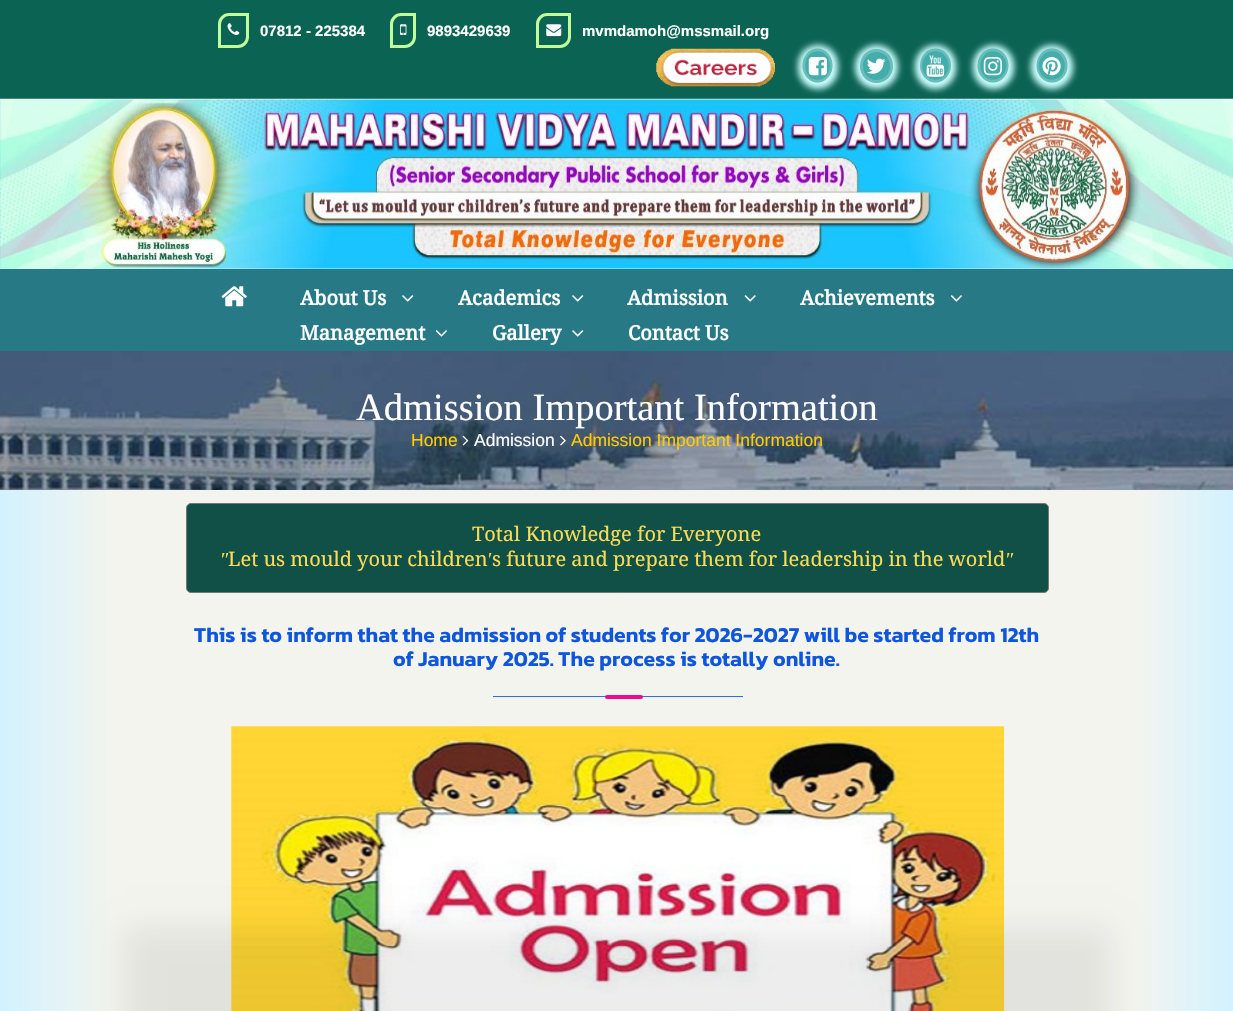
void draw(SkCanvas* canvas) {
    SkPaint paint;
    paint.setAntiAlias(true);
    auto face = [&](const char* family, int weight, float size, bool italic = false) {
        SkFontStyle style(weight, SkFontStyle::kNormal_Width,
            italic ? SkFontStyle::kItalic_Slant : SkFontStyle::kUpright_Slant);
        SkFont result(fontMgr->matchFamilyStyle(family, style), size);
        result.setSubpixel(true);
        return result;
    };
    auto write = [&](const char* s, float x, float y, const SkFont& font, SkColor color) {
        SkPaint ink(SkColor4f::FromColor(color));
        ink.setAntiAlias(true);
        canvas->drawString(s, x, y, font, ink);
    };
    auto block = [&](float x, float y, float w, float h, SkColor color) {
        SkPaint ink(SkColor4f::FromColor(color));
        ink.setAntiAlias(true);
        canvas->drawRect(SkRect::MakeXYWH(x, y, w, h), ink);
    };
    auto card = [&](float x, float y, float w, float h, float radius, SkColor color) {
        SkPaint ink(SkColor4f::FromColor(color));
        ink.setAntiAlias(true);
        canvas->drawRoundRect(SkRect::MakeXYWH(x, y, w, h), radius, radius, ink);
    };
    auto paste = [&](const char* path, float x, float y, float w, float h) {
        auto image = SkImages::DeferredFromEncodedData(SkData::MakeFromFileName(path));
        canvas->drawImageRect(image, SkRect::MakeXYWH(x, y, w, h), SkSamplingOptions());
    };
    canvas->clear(SK_ColorWHITE);
    block(0, 0, 1233, 99, SkColorSetRGB(11, 99, 83));
    paint.setStyle(SkPaint::kStroke_Style);
    paint.setStrokeWidth(3);
    paint.setColor(SkColorSetRGB(192, 253, 154));
    canvas->drawPath(SkPathBuilder().moveTo(229, 14.5f).lineTo(247.5f, 14.5f).lineTo(247.5f, 37).cubicTo(247.5f, 42, 243, 46.5f, 238, 46.5f).lineTo(219.5f, 46.5f).lineTo(219.5f, 24).cubicTo(219.5f, 19, 224, 14.5f, 229, 14.5f).close().detach(), paint);
    paste("pic1.png", 227, 23, 13, 12);
    auto kFont1 = face("Liberation Sans", 700, 15);
    write("07812 - 225384", 260, 36, kFont1, SK_ColorWHITE);
    canvas->drawPath(SkPathBuilder().moveTo(401, 14.5f).lineTo(414.5f, 14.5f).lineTo(414.5f, 37).cubicTo(414.5f, 42, 410, 46.5f, 405, 46.5f).lineTo(391.5f, 46.5f).lineTo(391.5f, 24).cubicTo(391.5f, 19, 396, 14.5f, 401, 14.5f).close().detach(), paint);
    paste("pic2.png", 400, 24, 7, 11);
    write("9893429639", 427, 36, kFont1, SK_ColorWHITE);
    canvas->drawPath(SkPathBuilder().moveTo(547, 14.5f).lineTo(569.5f, 14.5f).lineTo(569.5f, 37).cubicTo(569.5f, 42, 565, 46.5f, 560, 46.5f).lineTo(537.5f, 46.5f).lineTo(537.5f, 24).cubicTo(537.5f, 19, 542, 14.5f, 547, 14.5f).close().detach(), paint);
    paste("pic3.png", 546, 24, 16, 13);
    write("mvmdamoh@mssmail.org", 582, 36, kFont1, SK_ColorWHITE);
    paste("pic4.png", 656, 48, 119, 39);
    paste("pic10.png", 0, 98, 1233, 171);
    paint.setStyle(SkPaint::kFill_Style);
    paint.setColor(SkColorSetRGB(204, 255, 255));
    paint.setMaskFilter(SkMaskFilter::MakeBlur(kNormal_SkBlurStyle, 3));
    canvas->drawRoundRect(SkRect::MakeXYWH(798, 45, 40, 44), 20, 20, paint);
    paint.setMaskFilter(nullptr);
    paint.setColor(SkColorSetRGB(68, 172, 169));
    canvas->drawOval(SkRect::MakeXYWH(802.5f, 48.5f, 30, 34), paint);
    paint.setStyle(SkPaint::kStroke_Style);
    paint.setStrokeWidth(2.5f);
    paint.setColor(SkColorSetARGB(51, 255, 255, 255));
    canvas->drawPath(SkPathBuilder().moveTo(817.5f, 50).cubicTo(835.5f, 50, 835.5f, 81, 817.5f, 81).cubicTo(799.5f, 81, 799.5f, 50, 817.5f, 50).close().detach(), paint);
    paste("pic5.png", 808, 57, 19, 19);
    paint.setStyle(SkPaint::kFill_Style);
    paint.setColor(SkColorSetRGB(204, 255, 255));
    paint.setMaskFilter(SkMaskFilter::MakeBlur(kNormal_SkBlurStyle, 3));
    canvas->drawRoundRect(SkRect::MakeXYWH(855, 45, 43, 44), 21.5f, 21.5f, paint);
    paint.setMaskFilter(nullptr);
    card(860, 49, 33, 34, 16.5f, SkColorSetRGB(68, 172, 169));
    paint.setStyle(SkPaint::kStroke_Style);
    paint.setStrokeWidth(3);
    paint.setColor(SkColorSetARGB(51, 255, 255, 255));
    canvas->drawRoundRect(SkRect::MakeXYWH(861.5f, 50.5f, 30, 31), 15, 15, paint);
    paste("pic6.png", 867, 58, 19, 16);
    paint.setStyle(SkPaint::kFill_Style);
    paint.setColor(SkColorSetRGB(204, 255, 255));
    paint.setMaskFilter(SkMaskFilter::MakeBlur(kNormal_SkBlurStyle, 3));
    canvas->drawRoundRect(SkRect::MakeXYWH(915, 45, 41, 44), 20.5f, 20.5f, paint);
    paint.setMaskFilter(nullptr);
    paint.setColor(SkColorSetRGB(68, 172, 169));
    canvas->drawOval(SkRect::MakeXYWH(920, 48.5f, 31, 34), paint);
    paint.setStyle(SkPaint::kStroke_Style);
    paint.setStrokeWidth(2.5f);
    paint.setColor(SkColorSetARGB(51, 255, 255, 255));
    canvas->drawPath(SkPathBuilder().moveTo(935.5f, 50).cubicTo(943.5f, 50, 950, 57, 950, 65.5f).cubicTo(950, 74.5f, 943.5f, 81, 935.5f, 81).cubicTo(927.5f, 81, 921, 74.5f, 921, 65.5f).cubicTo(921, 57, 927.5f, 50, 935.5f, 50).close().detach(), paint);
    paste("pic7.png", 926, 55, 19, 22);
    paint.setStyle(SkPaint::kFill_Style);
    paint.setColor(SkColorSetRGB(204, 255, 255));
    paint.setMaskFilter(SkMaskFilter::MakeBlur(kNormal_SkBlurStyle, 3));
    canvas->drawRoundRect(SkRect::MakeXYWH(973, 45, 41, 44), 20.5f, 20.5f, paint);
    paint.setMaskFilter(nullptr);
    paint.setColor(SkColorSetRGB(68, 172, 169));
    canvas->drawOval(SkRect::MakeXYWH(977.5f, 48.5f, 31, 34), paint);
    paint.setStyle(SkPaint::kStroke_Style);
    paint.setColor(SkColorSetARGB(51, 255, 255, 255));
    canvas->drawPath(SkPathBuilder().moveTo(993, 50).cubicTo(1001, 50, 1007.5f, 57, 1007.5f, 65.5f).cubicTo(1007.5f, 74.5f, 1001, 81, 993, 81).cubicTo(985, 81, 979, 74.5f, 979, 65.5f).cubicTo(979, 57, 985, 50, 993, 50).close().detach(), paint);
    paste("pic8.png", 983, 57, 19, 19);
    paint.setStyle(SkPaint::kFill_Style);
    paint.setColor(SkColorSetRGB(204, 255, 255));
    paint.setMaskFilter(SkMaskFilter::MakeBlur(kNormal_SkBlurStyle, 3));
    canvas->drawRoundRect(SkRect::MakeXYWH(1031, 45, 42, 44), 21, 21, paint);
    paint.setMaskFilter(nullptr);
    paint.setColor(SkColorSetRGB(68, 172, 169));
    canvas->drawOval(SkRect::MakeXYWH(1036.5f, 48.5f, 31, 34), paint);
    paint.setStyle(SkPaint::kStroke_Style);
    paint.setColor(SkColorSetARGB(51, 255, 255, 255));
    canvas->drawPath(SkPathBuilder().moveTo(1052, 50).cubicTo(1060, 50, 1066, 57, 1066, 65.5f).cubicTo(1066, 74.5f, 1060, 81, 1052, 81).cubicTo(1044, 81, 1037.5f, 74.5f, 1037.5f, 65.5f).cubicTo(1037.5f, 57, 1044, 50, 1052, 50).close().detach(), paint);
    paste("pic9.png", 1042, 57, 19, 19);
    block(0, 269, 1233, 82, SkColorSetRGB(39, 121, 134));
    paste("pic11.png", 221, 286, 26, 21);
    auto kFont2 = face("Droid Serif", 700, 20);
    write("About Us", 300, 305, kFont2, SK_ColorWHITE);
    paste("pic12.png", 402, 295, 12, 7);
    write("Academics", 458, 305, kFont2, SK_ColorWHITE);
    paste("pic12.png", 572, 295, 12, 7);
    write("Admission", 627, 305, kFont2, SK_ColorWHITE);
    paste("pic13.png", 744, 295, 12, 7);
    write("Achievements", 800, 305, kFont2, SK_ColorWHITE);
    paste("pic14.png", 950, 295, 12, 7);
    write("Management", 300, 340, kFont2, SK_ColorWHITE);
    paste("pic14.png", 435, 330, 12, 7);
    write("Gallery", 492, 340, kFont2, SK_ColorWHITE);
    paste("pic12.png", 572, 330, 12, 7);
    write("Contact Us", 628, 340, kFont2, SK_ColorWHITE);
    paste("pic15.png", 0, 351, 1233, 139);
    auto kFont3 = face("Liberation Serif", 400, 38.5f);
    write("Admission Important Information", 356, 420, kFont3, SK_ColorWHITE);
    auto kFont4 = face("Liberation Sans", 400, 17.5f);
    write("Home", 411, 446, kFont4, SkColorSetRGB(255, 204, 0));
    paste("pic16.png", 462, 435, 7, 11);
    write("Admission", 474, 446, kFont4, SK_ColorWHITE);
    paste("pic17.png", 560, 435, 6, 11);
    write("Admission Important Information", 571, 446, kFont4, SkColorSetRGB(255, 204, 0));
    paint.setStyle(SkPaint::kFill_Style);
    {
        const SkColor colors[] = {SkColorSetRGB(210, 242, 255), SkColorSetRGB(243, 244, 237), SkColorSetRGB(244, 244, 239), SkColorSetRGB(210, 242, 255)};
        const float stops[] = {0, 0.09f, 0.92f, 1};
        const SkPoint ends[] = {{0, 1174}, {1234, 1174}};
        paint.setShader(SkGradientShader::MakeLinear(ends, colors, stops, 4, SkTileMode::kClamp));
        paint.setAlpha(255);
    }
    canvas->drawRect(SkRect::MakeXYWH(0, 490, 1233, 521), paint);
    paint.setShader(nullptr);
    paint.setColor(SkColorSetRGB(17, 80, 71));
    canvas->drawRoundRect(SkRect::MakeXYWH(186.5f, 503.5f, 862, 89), 4.5f, 4.5f, paint);
    paint.setStyle(SkPaint::kStroke_Style);
    paint.setStrokeWidth(1);
    paint.setColor(SkColorSetRGB(117, 120, 117));
    canvas->drawRoundRect(SkRect::MakeXYWH(186.5f, 503.5f, 862, 89), 4.5f, 4.5f, paint);
    auto kFont5 = face("Droid Serif", 400, 20);
    write("Total Knowledge for Everyone", 472, 541, kFont5, SkColorSetRGB(251, 220, 86));
    auto kFont6 = face("Liberation Serif", 400, 20);
    write("ʺ", 221, 566, kFont6, SkColorSetRGB(251, 220, 86));
    write("Let us mould your children", 228, 566, kFont5, SkColorSetRGB(251, 220, 86));
    write("′", 488, 566, kFont6, SkColorSetRGB(251, 220, 86));
    write("s future and prepare them for leadership in the world", 492, 566, kFont5, SkColorSetRGB(251, 220, 86));
    write("ʺ", 1006, 566, kFont6, SkColorSetRGB(251, 220, 86));
    auto kFont7 = face("Kanit", 600, 21.25f);
    write("This is to inform that the admission of students for 2026-2027 will be started from 12th", 194, 642, kFont7, SkColorSetRGB(14, 86, 222));
    write("of January 2025. The process is totally online.", 393, 666, kFont7, SkColorSetRGB(14, 86, 222));
    block(493, 696, 250, 1, SkColorSetRGB(39, 110, 232));
    card(605, 695, 38, 4, 2, SkColorSetRGB(239, 12, 140));
    paste("pic18.png", 230, 726, 775, 285);
    paint.setStyle(SkPaint::kFill_Style);
    paint.setColor(SkColorSetARGB(18, 0, 0, 0));
    paint.setMaskFilter(SkMaskFilter::MakeBlur(kNormal_SkBlurStyle, 14));
    canvas->drawRect(SkRect::MakeXYWH(124, 928, 987, 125), paint);
    paint.setMaskFilter(nullptr);
}
